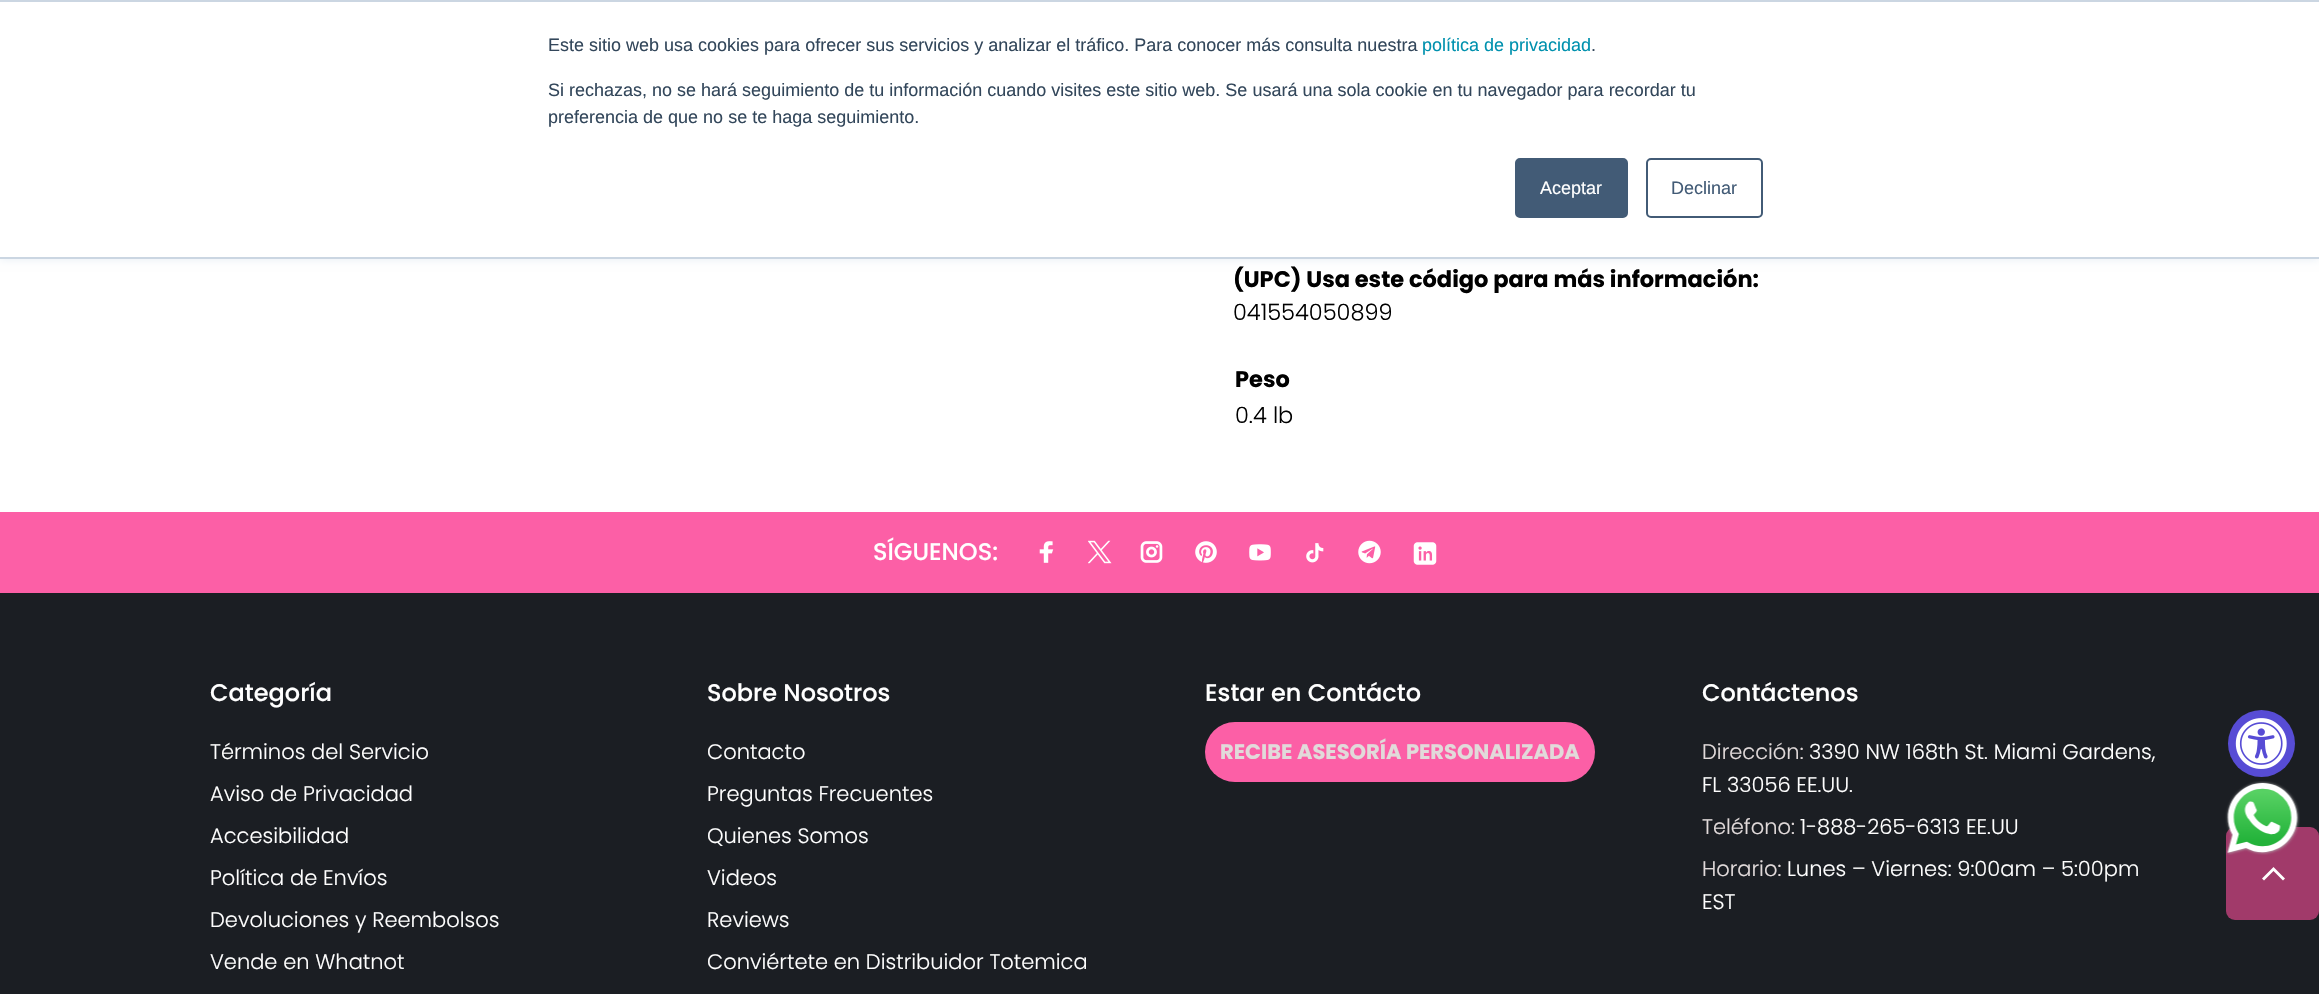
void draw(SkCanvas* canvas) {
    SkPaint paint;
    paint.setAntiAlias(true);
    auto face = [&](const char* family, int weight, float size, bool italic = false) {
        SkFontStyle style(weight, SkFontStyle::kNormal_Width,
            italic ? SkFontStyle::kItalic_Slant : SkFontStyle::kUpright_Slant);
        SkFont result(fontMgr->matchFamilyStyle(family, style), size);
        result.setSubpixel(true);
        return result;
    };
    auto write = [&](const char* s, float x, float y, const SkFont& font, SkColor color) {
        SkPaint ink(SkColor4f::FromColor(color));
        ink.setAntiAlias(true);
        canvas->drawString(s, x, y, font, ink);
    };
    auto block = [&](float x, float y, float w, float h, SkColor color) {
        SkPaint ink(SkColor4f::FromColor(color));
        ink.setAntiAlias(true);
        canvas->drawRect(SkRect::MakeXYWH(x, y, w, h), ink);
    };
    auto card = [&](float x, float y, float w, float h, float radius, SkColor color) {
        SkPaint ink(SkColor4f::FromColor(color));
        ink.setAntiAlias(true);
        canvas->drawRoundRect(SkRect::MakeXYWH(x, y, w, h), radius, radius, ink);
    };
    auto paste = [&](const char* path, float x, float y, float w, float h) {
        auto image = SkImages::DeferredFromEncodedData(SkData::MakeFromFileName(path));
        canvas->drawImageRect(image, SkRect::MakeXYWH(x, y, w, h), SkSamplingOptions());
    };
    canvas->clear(SK_ColorWHITE);
    paint.setColor(SkColorSetRGB(234, 240, 246));
    paint.setMaskFilter(SkMaskFilter::MakeBlur(kNormal_SkBlurStyle, 4));
    canvas->drawRect(SkRect::MakeXYWH(0, 2, 2319, 258), paint);
    paint.setMaskFilter(nullptr);
    block(0, 2, 2319, 255, SK_ColorWHITE);
    block(0, 0, 2319, 2, SkColorSetRGB(203, 214, 226));
    block(0, 257, 2319, 2, SkColorSetRGB(203, 214, 226));
    auto kFont1 = face("Liberation Sans", 400, 18);
    write("Este sitio web usa cookies para ofrecer sus servicios y analizar el tráfico. Para conocer más consulta nuestra", 548, 51, kFont1, SkColorSetRGB(51, 71, 91));
    write("política de privacidad", 1422, 51, kFont1, SkColorSetRGB(0, 145, 174));
    write(".", 1591, 51, kFont1, SkColorSetRGB(51, 71, 91));
    write("Si rechazas, no se hará seguimiento de tu información cuando visites este sitio web. Se usará una sola cookie en tu navegador para recordar tu", 548, 96, kFont1, SkColorSetRGB(51, 71, 91));
    write("preferencia de que no se te haga seguimiento.", 548, 123, kFont1, SkColorSetRGB(51, 71, 91));
    paint.setColor(SkColorSetRGB(66, 91, 118));
    canvas->drawRoundRect(SkRect::MakeXYWH(1516, 159, 111, 58), 4, 4, paint);
    paint.setStyle(SkPaint::kStroke_Style);
    paint.setStrokeWidth(2);
    canvas->drawRoundRect(SkRect::MakeXYWH(1516, 159, 111, 58), 4, 4, paint);
    write("Aceptar", 1540, 194, kFont1, SK_ColorWHITE);
    canvas->drawRoundRect(SkRect::MakeXYWH(1647, 159, 115, 58), 4, 4, paint);
    write("Declinar", 1671, 194, kFont1, SkColorSetRGB(66, 91, 118));
    auto kFont2 = face("Poppins", 700, 22.5f);
    write("(UPC) Usa este código para más información:", 1233, 287, kFont2, SK_ColorBLACK);
    auto kFont3 = face("Poppins", 300, 22.5f);
    write("041554050899", 1233, 320, kFont3, SK_ColorBLACK);
    write("Peso", 1235, 387, kFont2, SK_ColorBLACK);
    write("0.4 lb", 1235, 423, kFont3, SK_ColorBLACK);
    block(0, 593, 2319, 401, SkColorSetRGB(27, 30, 35));
    block(0, 512, 2319, 81, SkColorSetRGB(252, 95, 166));
    auto kFont4 = face("Poppins", 500, 24);
    write("SÍGUENOS:", 873, 560, kFont4, SK_ColorWHITE);
    paste("pic1.png", 1039, 541, 15, 22);
    paste("pic2.png", 1088, 540, 24, 24);
    paste("pic3.png", 1140, 541, 23, 22);
    paste("pic4.png", 1195, 541, 22, 22);
    paste("pic5.png", 1249, 544, 22, 17);
    paste("pic6.png", 1306, 543, 18, 20);
    paste("pic7.png", 1358, 540, 23, 24);
    paste("pic8.png", 1413, 542, 24, 23);
    write("Categoría", 210, 701, kFont4, SK_ColorWHITE);
    auto kFont5 = face("Poppins", 300, 21);
    write("Términos del Servicio", 210, 759, kFont5, SK_ColorWHITE);
    write("Aviso de Privacidad", 210, 801, kFont5, SK_ColorWHITE);
    write("Accesibilidad", 210, 843, kFont5, SK_ColorWHITE);
    write("Política de Envíos", 210, 885, kFont5, SK_ColorWHITE);
    write("Devoluciones y Reembolsos", 210, 927, kFont5, SK_ColorWHITE);
    write("Vende en Whatnot", 210, 969, kFont5, SK_ColorWHITE);
    write("Sobre Nosotros", 707, 701, kFont4, SK_ColorWHITE);
    write("Contacto", 707, 759, kFont5, SK_ColorWHITE);
    write("Preguntas Frecuentes", 707, 801, kFont5, SK_ColorWHITE);
    write("Quienes Somos", 707, 843, kFont5, SK_ColorWHITE);
    write("Videos", 707, 885, kFont5, SK_ColorWHITE);
    write("Reviews", 707, 927, kFont5, SK_ColorWHITE);
    write("Conviértete en Distribuidor Totemica", 707, 969, kFont5, SK_ColorWHITE);
    write("Estar en Contácto", 1205, 701, kFont4, SK_ColorWHITE);
    card(1205, 722, 390, 60, 30, SkColorSetRGB(252, 95, 166));
    auto kFont6 = face("Poppins", 700, 21);
    write("RECIBE ASESORÍA PERSONALIZADA", 1220, 759, kFont6, SkColorSetRGB(225, 218, 218));
    write("Contáctenos", 1702, 701, kFont4, SK_ColorWHITE);
    write("Dirección:", 1702, 759, kFont5, SkColorSetRGB(225, 218, 218));
    write("3390 NW 168th St. Miami Gardens,", 1809, 759, kFont5, SK_ColorWHITE);
    write("FL 33056 EE.UU.", 1702, 792, kFont5, SK_ColorWHITE);
    write("Teléfono:", 1702, 834, kFont5, SkColorSetRGB(225, 218, 218));
    write("1-888-265-6313 EE.UU", 1800, 834, kFont5, SK_ColorWHITE);
    write("Horario:", 1702, 876, kFont5, SkColorSetRGB(225, 218, 218));
    write("Lunes – Viernes: 9:00am – 5:00pm", 1787, 876, kFont5, SK_ColorWHITE);
    write("EST", 1702, 909, kFont5, SK_ColorWHITE);
    paint.setStyle(SkPaint::kFill_Style);
    paint.setColor(SkColorSetRGB(87, 76, 213));
    canvas->drawCircle(2261.5f, 743.5f, 33.5f, paint);
    paste("pic9.png", 2235, 718, 52, 51);
    card(2226, 827, 93, 93, 9, SkColorSetRGB(161, 58, 106));
    paste("pic10.png", 2225, 781, 75, 74);
    paint.setColor(SK_ColorWHITE);
    canvas->drawPath(SkPathBuilder().moveTo(2283, 880.5f).lineTo(2273.5f, 871).lineTo(2264, 880.5f).lineTo(2262, 878.5f).lineTo(2273.5f, 867).lineTo(2285, 878.5f).close().detach(), paint);
}
